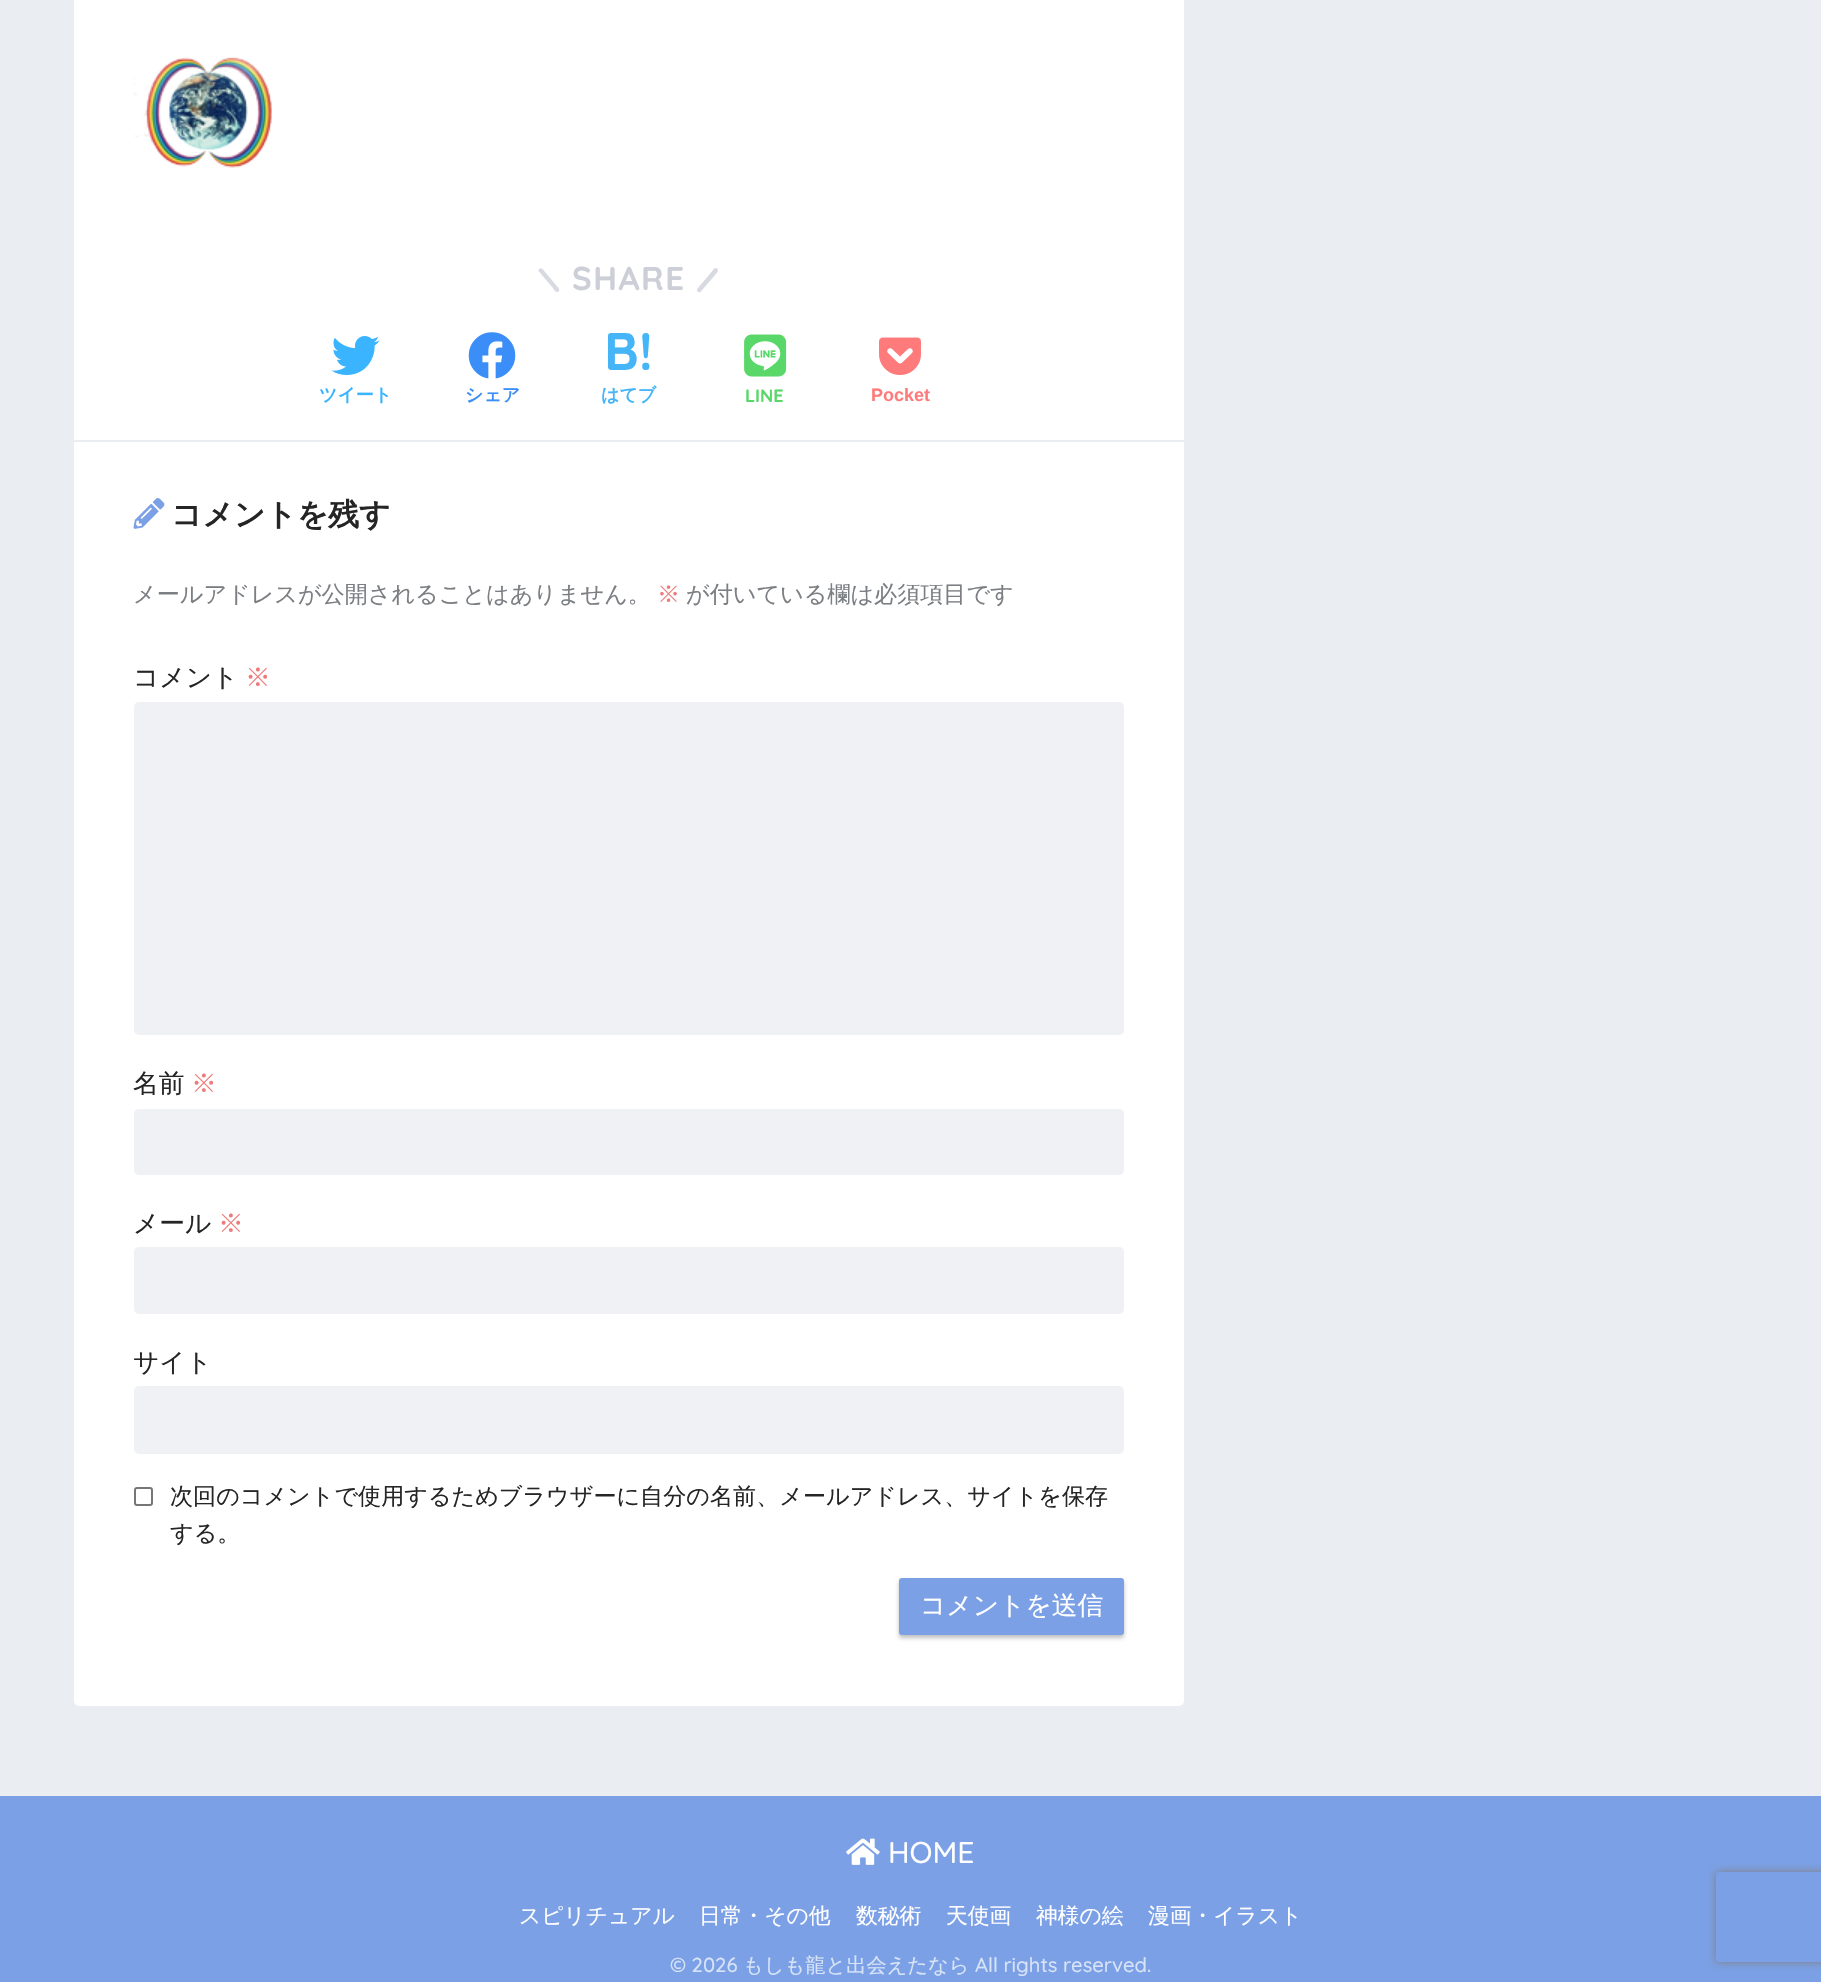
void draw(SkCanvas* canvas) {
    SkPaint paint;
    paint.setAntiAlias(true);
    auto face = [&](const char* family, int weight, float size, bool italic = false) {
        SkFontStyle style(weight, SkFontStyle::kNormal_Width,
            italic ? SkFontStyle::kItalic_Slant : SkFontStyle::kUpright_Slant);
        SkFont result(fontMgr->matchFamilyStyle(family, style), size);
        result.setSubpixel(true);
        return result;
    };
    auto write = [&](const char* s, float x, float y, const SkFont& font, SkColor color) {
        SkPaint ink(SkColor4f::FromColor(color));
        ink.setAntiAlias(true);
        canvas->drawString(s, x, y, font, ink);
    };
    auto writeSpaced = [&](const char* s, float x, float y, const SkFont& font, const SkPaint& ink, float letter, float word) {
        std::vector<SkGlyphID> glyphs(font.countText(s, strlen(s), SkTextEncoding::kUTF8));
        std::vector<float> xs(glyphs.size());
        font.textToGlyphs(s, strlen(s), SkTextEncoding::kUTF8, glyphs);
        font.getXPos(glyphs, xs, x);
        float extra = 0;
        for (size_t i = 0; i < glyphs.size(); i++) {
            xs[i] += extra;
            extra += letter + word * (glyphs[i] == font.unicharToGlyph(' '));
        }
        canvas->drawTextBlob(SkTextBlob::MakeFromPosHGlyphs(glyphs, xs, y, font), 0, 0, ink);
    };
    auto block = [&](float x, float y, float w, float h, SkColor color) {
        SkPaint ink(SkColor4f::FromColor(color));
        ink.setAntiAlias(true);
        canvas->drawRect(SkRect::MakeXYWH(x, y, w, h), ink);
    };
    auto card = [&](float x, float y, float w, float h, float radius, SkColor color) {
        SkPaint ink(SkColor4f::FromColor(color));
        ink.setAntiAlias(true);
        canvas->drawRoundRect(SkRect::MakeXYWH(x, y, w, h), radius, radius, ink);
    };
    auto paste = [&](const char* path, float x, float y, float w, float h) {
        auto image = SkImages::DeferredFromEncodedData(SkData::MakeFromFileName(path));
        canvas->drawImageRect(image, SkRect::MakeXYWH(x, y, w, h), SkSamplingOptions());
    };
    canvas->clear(SkColorSetRGB(234, 237, 242));
    card(74, -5, 1110, 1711, 5, SK_ColorWHITE);
    paste("pic1.png", 133, 57, 139, 111);
    paint.setColor(SkColorSetRGB(216, 218, 225));
    canvas->drawPath(SkPathBuilder().moveTo(542.5f, 269).lineTo(556, 285).cubicTo(557, 286.5f, 561, 289.5f, 558.5f, 291.5f).cubicTo(556, 293.5f, 554, 289.5f, 553, 288).lineTo(538.5f, 271).cubicTo(538, 269, 541, 267, 542.5f, 269).close().detach(), paint);
    auto kFont1 = face("Quicksand", 700, 33);
    paint.setColor(SkColorSetRGB(204, 207, 215));
    writeSpaced("SHARE", 572, 290, kFont1, paint, 1.5f, 0);
    paint.setColor(SkColorSetRGB(216, 218, 225));
    canvas->drawPath(SkPathBuilder().moveTo(697.5f, 288.5f).lineTo(711.5f, 272).cubicTo(712.5f, 271, 715, 266.5f, 717, 268.5f).cubicTo(719.5f, 270.5f, 716, 274, 715, 275).lineTo(700.5f, 292).cubicTo(698.5f, 293, 696, 290.5f, 697.5f, 288.5f).close().detach(), paint);
    paste("pic2.png", 331, 336, 49, 39);
    auto kFont2 = face("WenQuanYi Zen Hei", 700, 18);
    write("ツイート", 319, 401, kFont2, SkColorSetRGB(58, 180, 255));
    paste("pic3.png", 468, 332, 48, 47);
    write("シェア", 465, 401, kFont2, SkColorSetRGB(59, 141, 247));
    auto kFont3 = face("Quicksand", 700, 53);
    write("B!", 604, 370, kFont3, SkColorSetRGB(69, 181, 247));
    write("はてブ", 601, 401, kFont2, SkColorSetRGB(69, 181, 247));
    paste("pic4.png", 744, 334, 43, 43);
    auto kFont4 = face("Quicksand", 700, 18);
    write("LINE", 745, 402, kFont4, SkColorSetRGB(89, 216, 105));
    paste("pic5.png", 879, 337, 42, 38);
    auto kFont5 = face("Liberation Sans", 700, 18);
    write("Pocket", 871, 401, kFont5, SkColorSetRGB(255, 123, 123));
    block(74, 440, 1110, 2, SkColorSetRGB(234, 237, 242));
    paste("pic6.png", 133, 498, 32, 31);
    auto kFont6 = face("WenQuanYi Zen Hei", 700, 30.75f);
    write("コメントを残す", 171, 525, kFont6, SkColorSetRGB(37, 37, 37));
    auto kFont7 = face("WenQuanYi Zen Hei", 500, 23.1f);
    write("メールアドレスが公開されることはありません。", 133, 602, kFont7, SkColorSetRGB(123, 126, 130));
    write("※", 657, 602, kFont7, SkColorSetRGB(238, 123, 123));
    write("が付いている欄は必須項目です", 686, 602, kFont7, SkColorSetRGB(123, 126, 130));
    auto kFont8 = face("WenQuanYi Zen Hei", 500, 25.75f);
    write("コメント", 133, 686, kFont8, SkColorSetRGB(37, 37, 37));
    write("※", 245, 686, kFont8, SkColorSetRGB(238, 123, 123));
    card(134, 702, 990, 333, 5, SkColorSetRGB(239, 241, 245));
    write("名前", 133, 1092, kFont8, SkColorSetRGB(37, 37, 37));
    write("※", 191, 1092, kFont8, SkColorSetRGB(238, 123, 123));
    card(134, 1109, 990, 66, 5, SkColorSetRGB(239, 241, 245));
    write("メール", 133, 1232, kFont8, SkColorSetRGB(37, 37, 37));
    write("※", 218, 1232, kFont8, SkColorSetRGB(238, 123, 123));
    card(134, 1247, 990, 67, 5, SkColorSetRGB(239, 241, 245));
    write("サイト", 133, 1371, kFont8, SkColorSetRGB(37, 37, 37));
    card(134, 1386, 990, 68, 5, SkColorSetRGB(239, 241, 245));
    paint.setStyle(SkPaint::kStroke_Style);
    paint.setStrokeWidth(2);
    paint.setColor(SkColorSetRGB(118, 118, 118));
    canvas->drawRoundRect(SkRect::MakeXYWH(135, 1488, 17, 17), 2, 2, paint);
    write("次回のコメントで使用するためブラウザーに自分の名前、メールアドレス、サイトを保存", 170, 1504, kFont7, SkColorSetRGB(37, 37, 37));
    write("する。", 170, 1541, kFont7, SkColorSetRGB(37, 37, 37));
    paint.setStyle(SkPaint::kFill_Style);
    paint.setColor(SkColorSetARGB(64, 0, 0, 0));
    paint.setMaskFilter(SkMaskFilter::MakeBlur(kNormal_SkBlurStyle, 2));
    canvas->drawRoundRect(SkRect::MakeXYWH(899, 1581, 225, 57), 3, 3, paint);
    paint.setMaskFilter(nullptr);
    card(899, 1578, 225, 57, 3, SkColorSetRGB(123, 160, 229));
    write("コメントを送信", 920, 1614, kFont8, SK_ColorWHITE);
    block(0, 1796, 1821, 186, SkColorSetRGB(123, 160, 229));
    paste("pic7.png", 846, 1838, 34, 27);
    auto kFont9 = face("Quicksand", 500, 30);
    write("HOME", 888, 1863, kFont9, SK_ColorWHITE);
    auto kFont10 = face("WenQuanYi Zen Hei", 500, 21.75f);
    write("スピリチュアル", 519, 1923, kFont10, SK_ColorWHITE);
    write("日常・その他", 699, 1923, kFont10, SK_ColorWHITE);
    write("数秘術", 856, 1923, kFont10, SK_ColorWHITE);
    write("天使画", 946, 1923, kFont10, SK_ColorWHITE);
    write("神様の絵", 1036, 1923, kFont10, SK_ColorWHITE);
    write("漫画・イラスト", 1148, 1923, kFont10, SK_ColorWHITE);
    auto kFont11 = face("Quicksand", 500, 20.25f);
    write("© 2026", 670, 1972, kFont11, SkColorSetRGB(215, 227, 247));
    auto kFont12 = face("WenQuanYi Zen Hei", 500, 20.25f);
    write("もしも龍と出会えたなら", 743, 1972, kFont12, SkColorSetRGB(215, 227, 247));
    write("All rights reserved.", 975, 1972, kFont11, SkColorSetRGB(215, 227, 247));
    canvas->save();
    canvas->clipPath(SkPathBuilder(SkPathFillType::kEvenOdd).moveTo(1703, 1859).lineTo(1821, 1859).lineTo(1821, 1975).lineTo(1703, 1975).close().moveTo(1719, 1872).lineTo(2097, 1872).cubicTo(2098.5f, 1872, 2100, 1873.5f, 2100, 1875).lineTo(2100, 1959).cubicTo(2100, 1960.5f, 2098.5f, 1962, 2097, 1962).lineTo(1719, 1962).cubicTo(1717.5f, 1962, 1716, 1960.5f, 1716, 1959).lineTo(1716, 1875).cubicTo(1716, 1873.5f, 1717.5f, 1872, 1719, 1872).close().detach(), true);
    paint.setColor(SkColorSetRGB(128, 128, 128));
    paint.setMaskFilter(SkMaskFilter::MakeBlur(kNormal_SkBlurStyle, 4));
    canvas->drawRoundRect(SkRect::MakeXYWH(1716, 1872, 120, 90), 3, 3, paint);
    paint.setMaskFilter(nullptr);
    canvas->restore();
}
